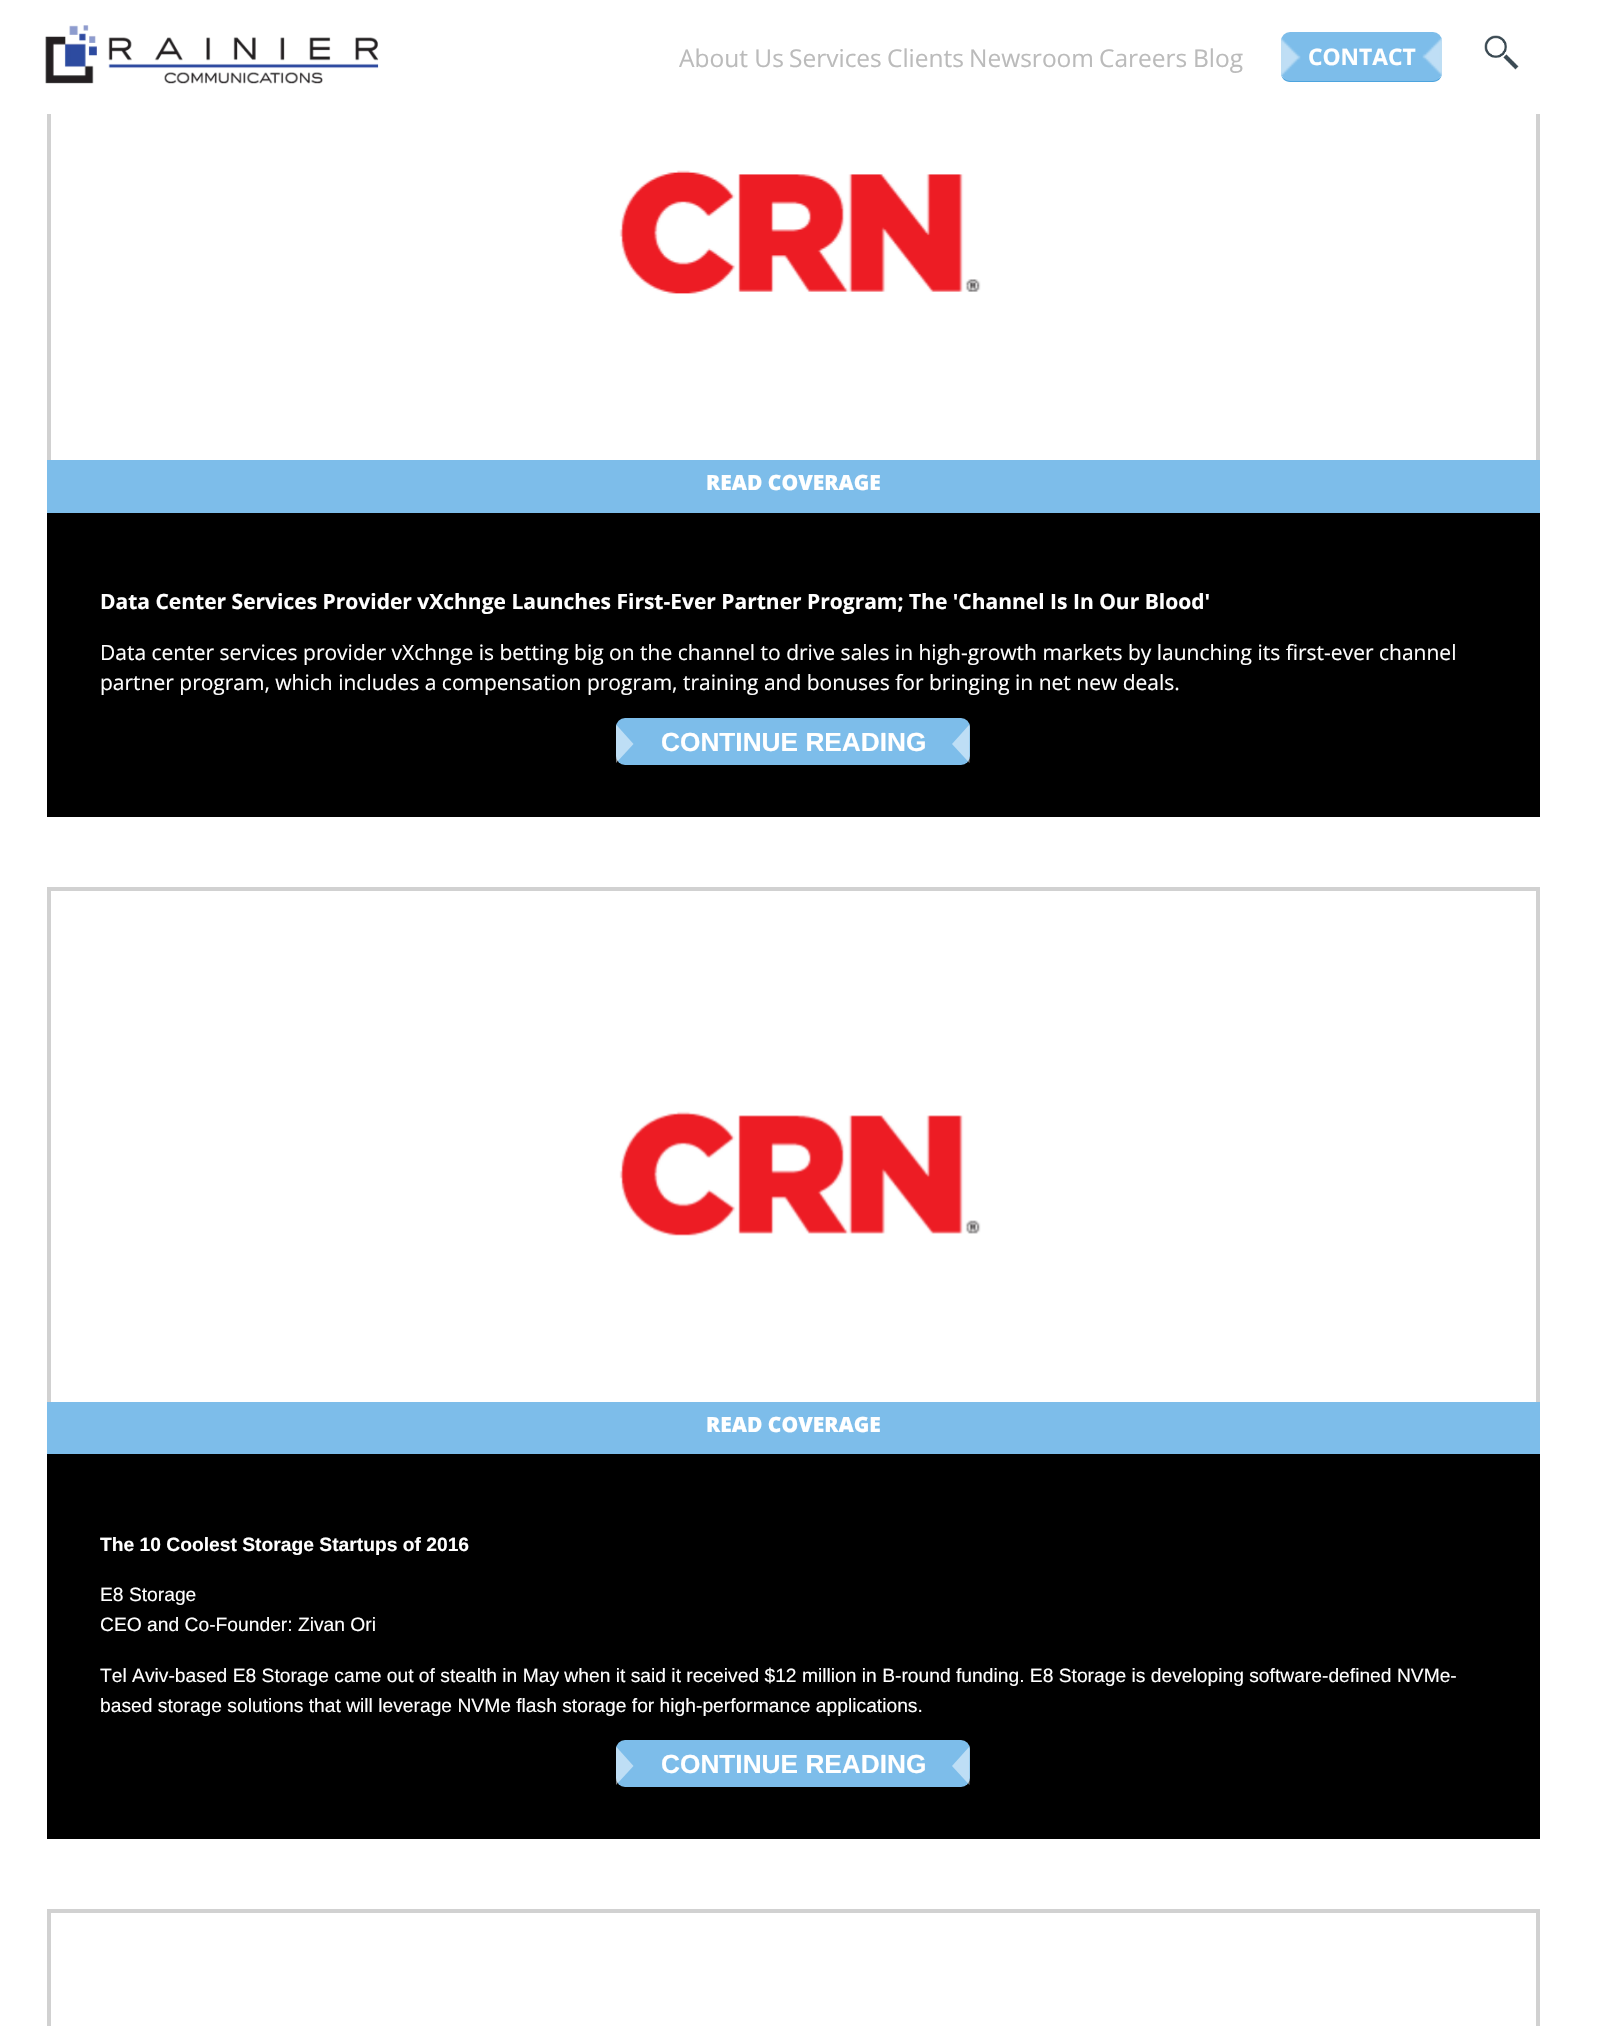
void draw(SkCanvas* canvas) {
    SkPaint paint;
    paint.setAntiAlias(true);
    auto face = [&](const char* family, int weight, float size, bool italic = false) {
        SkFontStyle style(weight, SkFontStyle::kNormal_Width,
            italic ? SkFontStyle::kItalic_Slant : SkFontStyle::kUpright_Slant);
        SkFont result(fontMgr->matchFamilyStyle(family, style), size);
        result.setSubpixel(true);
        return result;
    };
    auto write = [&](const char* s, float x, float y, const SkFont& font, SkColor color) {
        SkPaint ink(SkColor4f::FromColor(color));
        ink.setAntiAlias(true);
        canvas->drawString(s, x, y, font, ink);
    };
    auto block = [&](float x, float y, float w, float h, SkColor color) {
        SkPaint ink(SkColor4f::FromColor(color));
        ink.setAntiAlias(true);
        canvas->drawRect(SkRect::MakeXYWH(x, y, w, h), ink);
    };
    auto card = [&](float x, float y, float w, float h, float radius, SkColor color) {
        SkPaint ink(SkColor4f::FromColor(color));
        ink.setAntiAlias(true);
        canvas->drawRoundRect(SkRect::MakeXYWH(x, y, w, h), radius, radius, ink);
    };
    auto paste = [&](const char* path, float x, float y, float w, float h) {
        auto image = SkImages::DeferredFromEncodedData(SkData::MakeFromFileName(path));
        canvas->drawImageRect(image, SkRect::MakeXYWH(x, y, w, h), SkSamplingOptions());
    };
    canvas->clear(SK_ColorWHITE);
    paint.setStyle(SkPaint::kStroke_Style);
    paint.setStrokeWidth(4);
    paint.setColor(SkColorSetRGB(209, 209, 209));
    canvas->drawRect(SkRect::MakeXYWH(49, -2, 1489, 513), paint);
    block(47, 0, 1493, 114, SK_ColorWHITE);
    paste("pic1.png", 45, 25, 334, 59);
    auto kFont1 = face("Open Sans", 400, 24.5f);
    write("About Us", 679, 67, kFont1, SkColorSetRGB(187, 187, 187));
    write("Services", 789, 67, kFont1, SkColorSetRGB(187, 187, 187));
    write("Clients", 887, 67, kFont1, SkColorSetRGB(187, 187, 187));
    write("Newsroom", 969, 67, kFont1, SkColorSetRGB(187, 187, 187));
    write("Careers", 1099, 67, kFont1, SkColorSetRGB(187, 187, 187));
    write("Blog", 1193, 67, kFont1, SkColorSetRGB(187, 187, 187));
    paint.setStyle(SkPaint::kFill_Style);
    paint.setColor(SkColorSetRGB(77, 164, 222));
    canvas->drawPath(SkPathBuilder().moveTo(1281, 72).lineTo(1281, 73).cubicTo(1281, 78, 1285, 82, 1290, 82).lineTo(1433, 82).cubicTo(1438, 82, 1442, 78, 1442, 73).lineTo(1442, 72).cubicTo(1442, 77, 1438, 80, 1433, 80).lineTo(1290, 80).cubicTo(1285, 80, 1281, 77, 1281, 72).close().detach(), paint);
    card(1281, 32, 161, 49, 9, SkColorSetRGB(125, 189, 234));
    paste("pic2.png", 1281, 38, 161, 38);
    auto kFont2 = face("Open Sans", 700, 22.75f);
    write("CONTACT", 1308, 65, kFont2, SK_ColorWHITE);
    paste("pic3.png", 1484, 35, 35, 35);
    paste("pic4.png", 619, 170, 362, 124);
    block(47, 460, 1493, 53, SkColorSetRGB(125, 189, 234));
    auto kFont3 = face("Open Sans", 800, 21);
    write("READ COVERAGE", 706, 490, kFont3, SK_ColorWHITE);
    block(47, 513, 1493, 304, SK_ColorBLACK);
    auto kFont4 = face("Open Sans", 700, 21);
    write("Data Center Services Provider vXchnge Launches First-Ever Partner Program; The 'Channel Is In Our Blood'", 100, 609, kFont4, SK_ColorWHITE);
    auto kFont5 = face("Open Sans", 400, 21);
    write("Data center services provider vXchnge is betting big on the channel to drive sales in high-growth markets by launching its first-ever channel", 100, 660, kFont5, SK_ColorWHITE);
    write("partner program, which includes a compensation program, training and bonuses for bringing in net new deals.", 100, 690, kFont5, SK_ColorWHITE);
    card(616, 718, 354, 47, 9, SkColorSetRGB(125, 189, 234));
    paint.setColor(SkColorSetARGB(128, 255, 255, 255));
    canvas->drawPath(SkPathBuilder().moveTo(616, 763).lineTo(616, 724.5f).lineTo(633.5f, 744).close().detach(), paint);
    auto kFont6 = face("Liberation Sans", 700, 26.25f);
    write("CONTINUE READING", 661, 751, kFont6, SK_ColorWHITE);
    canvas->drawPath(SkPathBuilder().moveTo(969.5f, 724.5f).lineTo(969.5f, 763).lineTo(952, 744).close().detach(), paint);
    paint.setStyle(SkPaint::kStroke_Style);
    paint.setColor(SkColorSetRGB(209, 209, 209));
    canvas->drawRect(SkRect::MakeXYWH(49, 889, 1489, 563), paint);
    paste("pic5.png", 619, 1111, 362, 125);
    block(47, 1402, 1493, 52, SkColorSetRGB(125, 189, 234));
    write("READ COVERAGE", 706, 1432, kFont3, SK_ColorWHITE);
    block(47, 1454, 1493, 385, SK_ColorBLACK);
    auto kFont7 = face("Liberation Sans", 700, 19.25f);
    write("The 10 Coolest Storage Startups of 2016", 100, 1551, kFont7, SK_ColorWHITE);
    auto kFont8 = face("Liberation Sans", 400, 19.25f);
    write("E8 Storage", 100, 1601, kFont8, SK_ColorWHITE);
    write("CEO and Co-Founder: Zivan Ori", 100, 1631, kFont8, SK_ColorWHITE);
    write("Tel Aviv-based E8 Storage came out of stealth in May when it said it received $12 million in B-round funding. E8 Storage is developing software-defined NVMe-", 100, 1682, kFont8, SK_ColorWHITE);
    write("based storage solutions that will leverage NVMe flash storage for high-performance applications.", 100, 1712, kFont8, SK_ColorWHITE);
    card(616, 1740, 354, 47, 9, SkColorSetRGB(125, 189, 234));
    paint.setStyle(SkPaint::kFill_Style);
    paint.setColor(SkColorSetARGB(128, 255, 255, 255));
    canvas->drawPath(SkPathBuilder().moveTo(616, 1785).lineTo(616, 1746.5f).lineTo(633.5f, 1766).close().detach(), paint);
    write("CONTINUE READING", 661, 1773, kFont6, SK_ColorWHITE);
    canvas->drawPath(SkPathBuilder().moveTo(969.5f, 1746.5f).lineTo(969.5f, 1785).lineTo(952, 1766).close().detach(), paint);
    paint.setStyle(SkPaint::kStroke_Style);
    paint.setColor(SkColorSetRGB(209, 209, 209));
    canvas->drawRect(SkRect::MakeXYWH(49, 1911, 1489, 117), paint);
}
